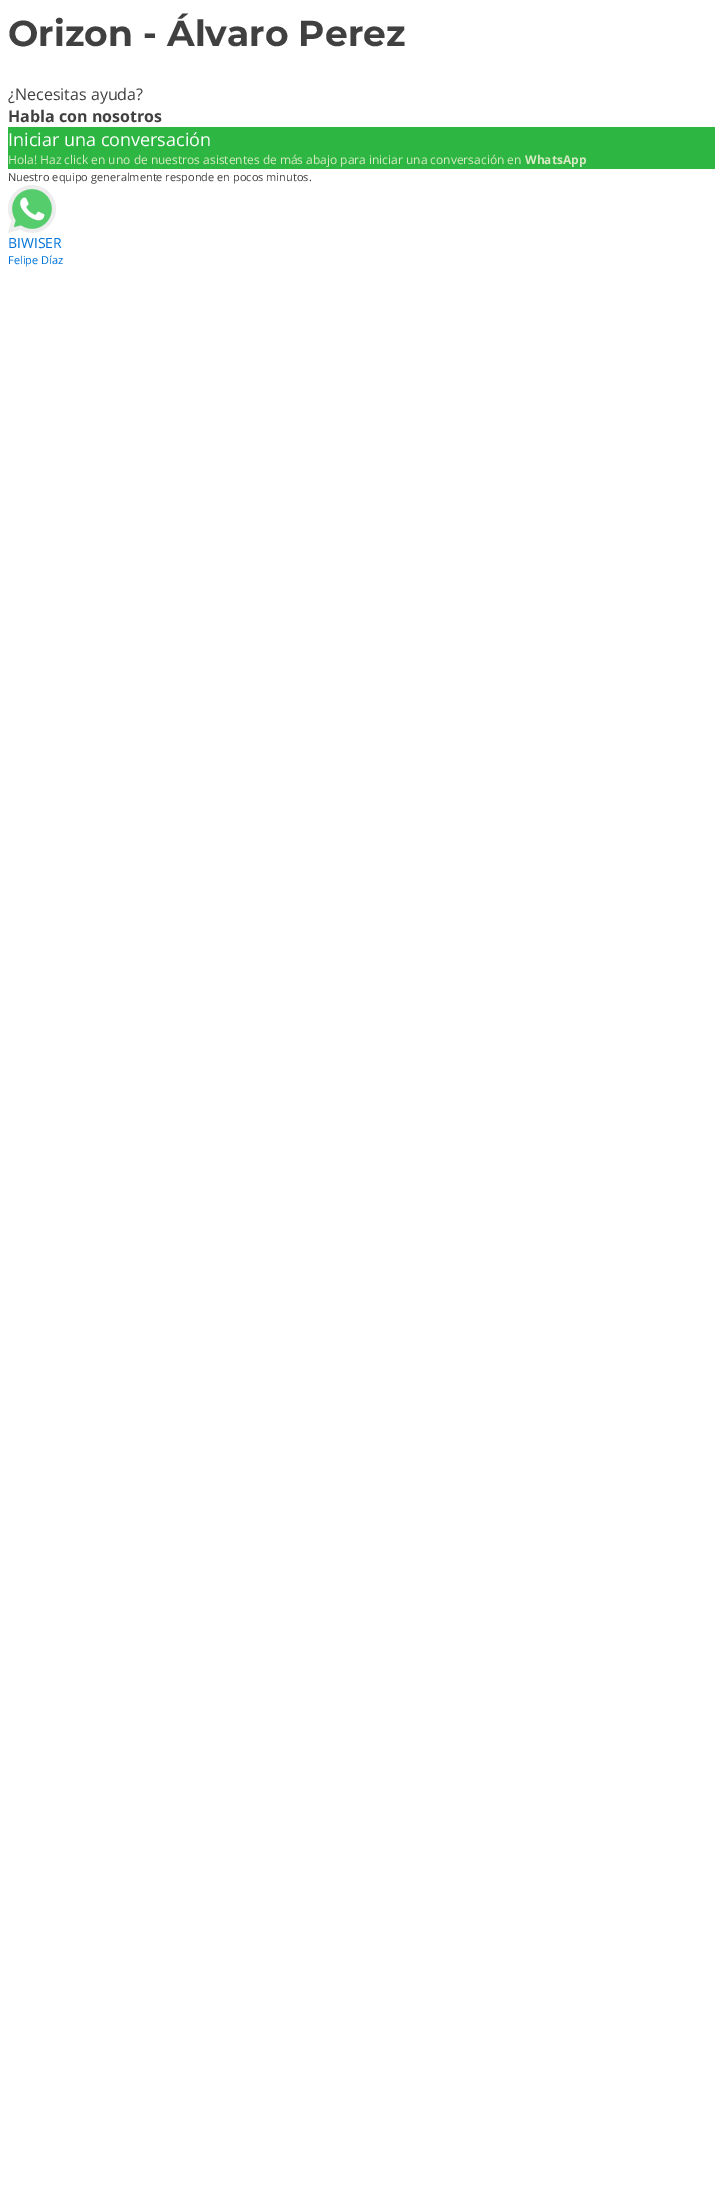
%!PS
<< /PageSize [723 2199] >> setpagedevice
/co { dup -16 bitshift 255 div exch dup -8 bitshift 255 and 255 div exch 255 and 255 div setrgbcolor } def
/fn { [ exch dup neg 0 0 3 -1 roll 0 0 ] selectfont } def
/tx { co fn moveto show } def
/bx { co rectfill } def
/im { 5 dict begin { /h /w /y /x /name } { exch def } forall
  gsave x y translate w h scale
  w h 8 [w 0 0 h 0 0] name (r) file false 3 colorimage grestore end } def
0 2199 translate 1 -1 scale
4 setmiterlimit
0 0 723 2199 16#FFFFFF bx
8 127 707 42 16#2DB742 bx
(media/1.raw) 8 185 48 48 im
(Orizon - Álvaro Perez) 8 46 /Montserrat-Bold 36 16#404040 tx
(¿Necesitas ayuda?) 8 100 /OpenSans-Regular 16 16#404040 tx
(Habla con nosotros) 8 122 /OpenSans-Bold 16 16#404040 tx
(Iniciar una conversación) 8 146 /OpenSans-Regular 18 16#FFFFFF tx
(Hola! Haz click en uno de nuestros asistentes de más abajo para iniciar una conversación en) 8 164 /OpenSans-Regular 12 16#D9EBC6 tx
(WhatsApp) 525 164 /OpenSans-Bold 12 16#D9EBC6 tx
(Nuestro equipo generalmente responde en pocos minutos.) 8 181 /OpenSans-Regular 11 16#404040 tx
(BIWISER) 8 248 /OpenSans-Regular 14 16#0074DB tx
(Felipe Díaz) 8 264 /OpenSans-Regular 11 16#0074DB tx
showpage
